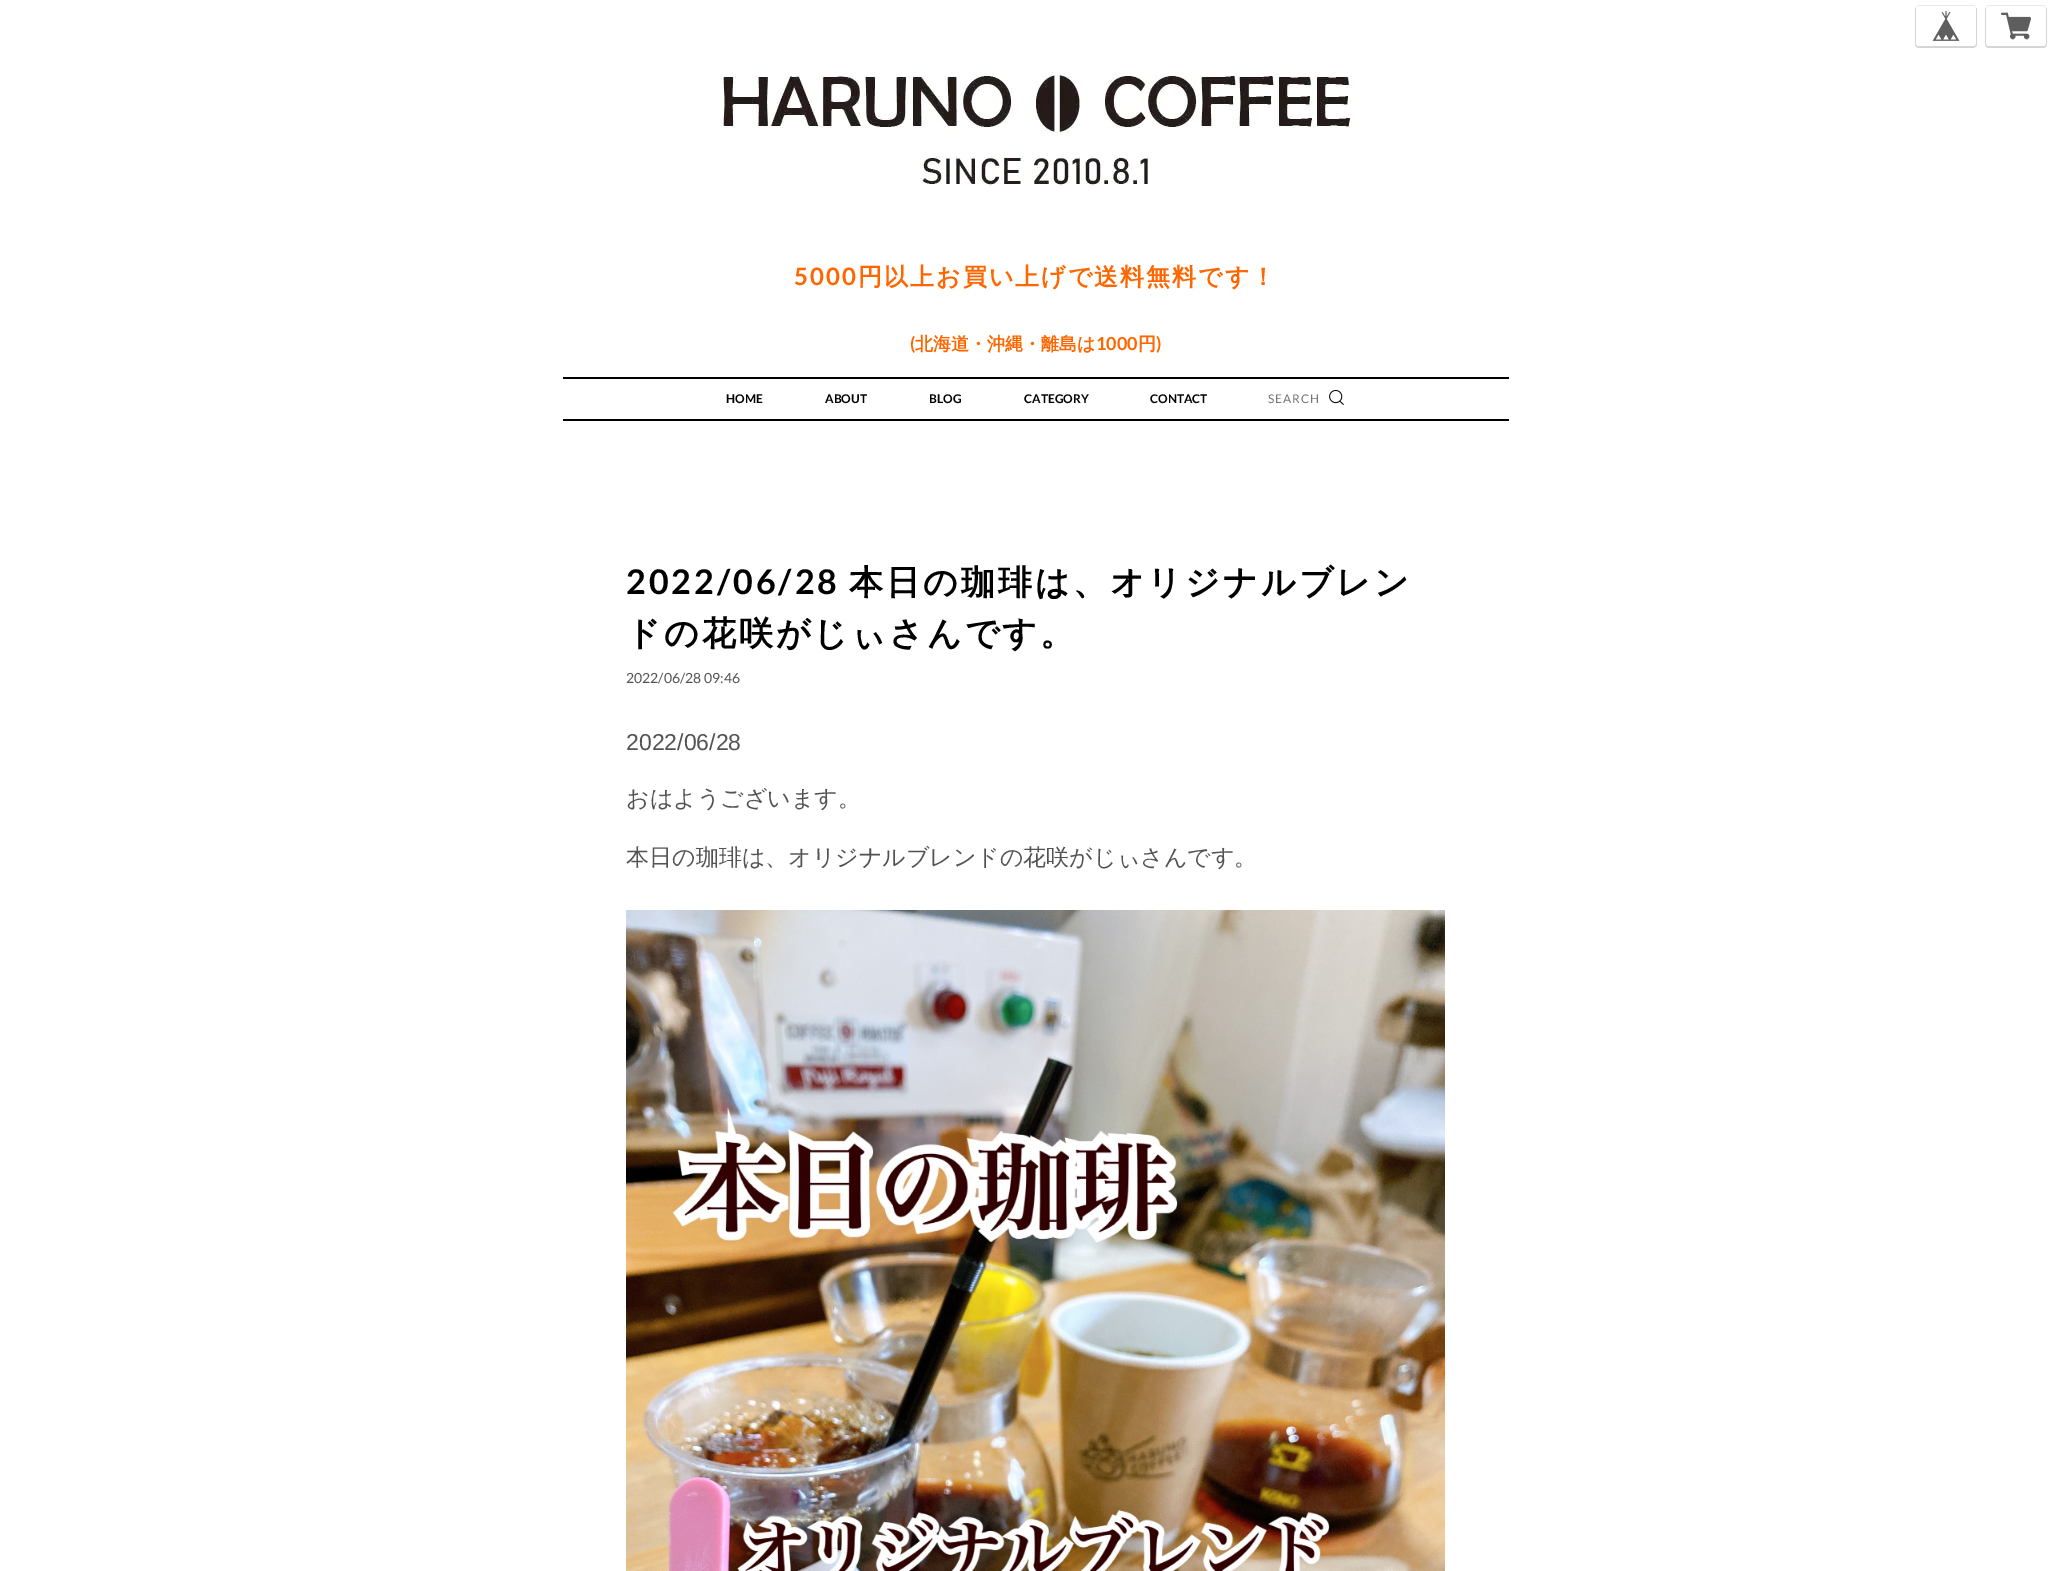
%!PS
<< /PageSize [2071 1571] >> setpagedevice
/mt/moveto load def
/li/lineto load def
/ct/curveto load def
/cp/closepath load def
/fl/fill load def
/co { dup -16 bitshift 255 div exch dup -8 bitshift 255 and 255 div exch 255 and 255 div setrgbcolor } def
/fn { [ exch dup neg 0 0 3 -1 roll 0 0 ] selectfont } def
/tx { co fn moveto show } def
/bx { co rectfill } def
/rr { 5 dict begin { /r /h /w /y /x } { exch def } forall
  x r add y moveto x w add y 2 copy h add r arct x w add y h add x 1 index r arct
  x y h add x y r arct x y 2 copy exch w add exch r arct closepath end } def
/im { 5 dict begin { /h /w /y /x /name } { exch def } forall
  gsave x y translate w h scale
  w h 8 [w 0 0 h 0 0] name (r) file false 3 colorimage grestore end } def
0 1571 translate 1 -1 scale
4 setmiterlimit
0 0 2071 1571 16#FFFFFF bx
16#EAEAEA co
1919 5 mt 1917 5 1916 7 1916 9 ct 1916 7 1917 6 1919 6 ct 1973 6 li 1975 6 1976 7 1976 9 ct 1976 7 1975 5 1973 5 ct cp fl
16#D5D5D5 co
1919 6 mt 1917 6 1915 8 1915 10 ct 1915 44 li 1915 46 1917 48 1919 48 ct 1973 48 li 1975 48 1977 46 1977 44 ct 1977 10 li 1977 8 1975 6 1973 6 ct 1975 6 1976 7 1976 9 ct 1976 43 li 1976 45 1975 46 1973 46 ct 1919 46 li 1917 46 1916 45 1916 43 ct 1916 9 li 1916 7 1917 6 1919 6 ct cp fl
16#FFFFFF co
1916 6 60 40 3 rr fl
(media/1.raw) 1932 11 28 30 im
16#EAEAEA co
1989 5 mt 1987 5 1986 7 1986 9 ct 1986 7 1987 6 1989 6 ct 2043 6 li 2045 6 2046 7 2046 9 ct 2046 7 2045 5 2043 5 ct cp fl
16#D5D5D5 co
1989 6 mt 1987 6 1985 8 1985 10 ct 1985 44 li 1985 46 1987 48 1989 48 ct 2043 48 li 2045 48 2047 46 2047 44 ct 2047 10 li 2047 8 2045 6 2043 6 ct 2045 6 2046 7 2046 9 ct 2046 43 li 2046 45 2045 46 2043 46 ct 1989 46 li 1987 46 1986 45 1986 43 ct 1986 9 li 1986 7 1987 6 1989 6 ct cp fl
16#FFFFFF co
1986 6 60 40 3 rr fl
(media/2.raw) 2001 12 30 28 im
(media/3.raw) 720 72 632 116 im
563 377 946 2 16#000000 bx
563 419 946 2 16#000000 bx
(media/4.raw) 1329 390 15 15 im
(media/5.raw) 626 910 819 661 im
/Lato-Bold 24 fn
16#FF6600 co
794 285 mt 2 0 (5000) ashow
/WenQuanYiZenHei-Bold 24 fn
858 285 mt 2 0 (円以上お買い上げで送料無料です！) ashow
(\() 910 350 /Lato-Bold 18 16#FF6600 tx
(北海道・沖縄・離島は) 915 350 /WenQuanYiZenHei-Bold 18 16#FF6600 tx
(1000) 1096 350 /Lato-Bold 18 16#FF6600 tx
(円) 1138 350 /WenQuanYiZenHei-Bold 18 16#FF6600 tx
(\)) 1156 350 /Lato-Bold 18 16#FF6600 tx
(HOME) 726 403 /Lato-Bold 12 16#000000 tx
(ABOUT) 825 403 /Lato-Bold 12 16#000000 tx
(BLOG) 929 403 /Lato-Bold 12 16#000000 tx
(CATEGORY) 1024 403 /Lato-Bold 12 16#000000 tx
(CONTACT) 1150 403 /Lato-Bold 12 16#000000 tx
/Lato-Regular 12 fn
16#757575 co
1268 403 mt 1 0 (SEARCH) ashow
/Lato-Bold 34 fn
16#000000 co
626 594 mt 3 0 (2022/06/28) ashow
/WenQuanYiZenHei-Bold 34 fn
849 594 mt 3 0 (本日の珈琲は、オリジナルブレン) ashow
626 645 mt 3 0 (ドの花咲がじぃさんです。) ashow
(2022/06/28 09:46) 626 683 /Lato-Regular 14 16#535353 tx
(2022/06/28) 626 750 /LiberationSans-Regular 23 16#535353 tx
(おはようございます。) 626 806 /WenQuanYiZenHei-Medium 23 16#535353 tx
(本日の珈琲は、オリジナルブレンドの花咲がじぃさんです。) 626 865 /WenQuanYiZenHei-Medium 23 16#535353 tx
showpage
